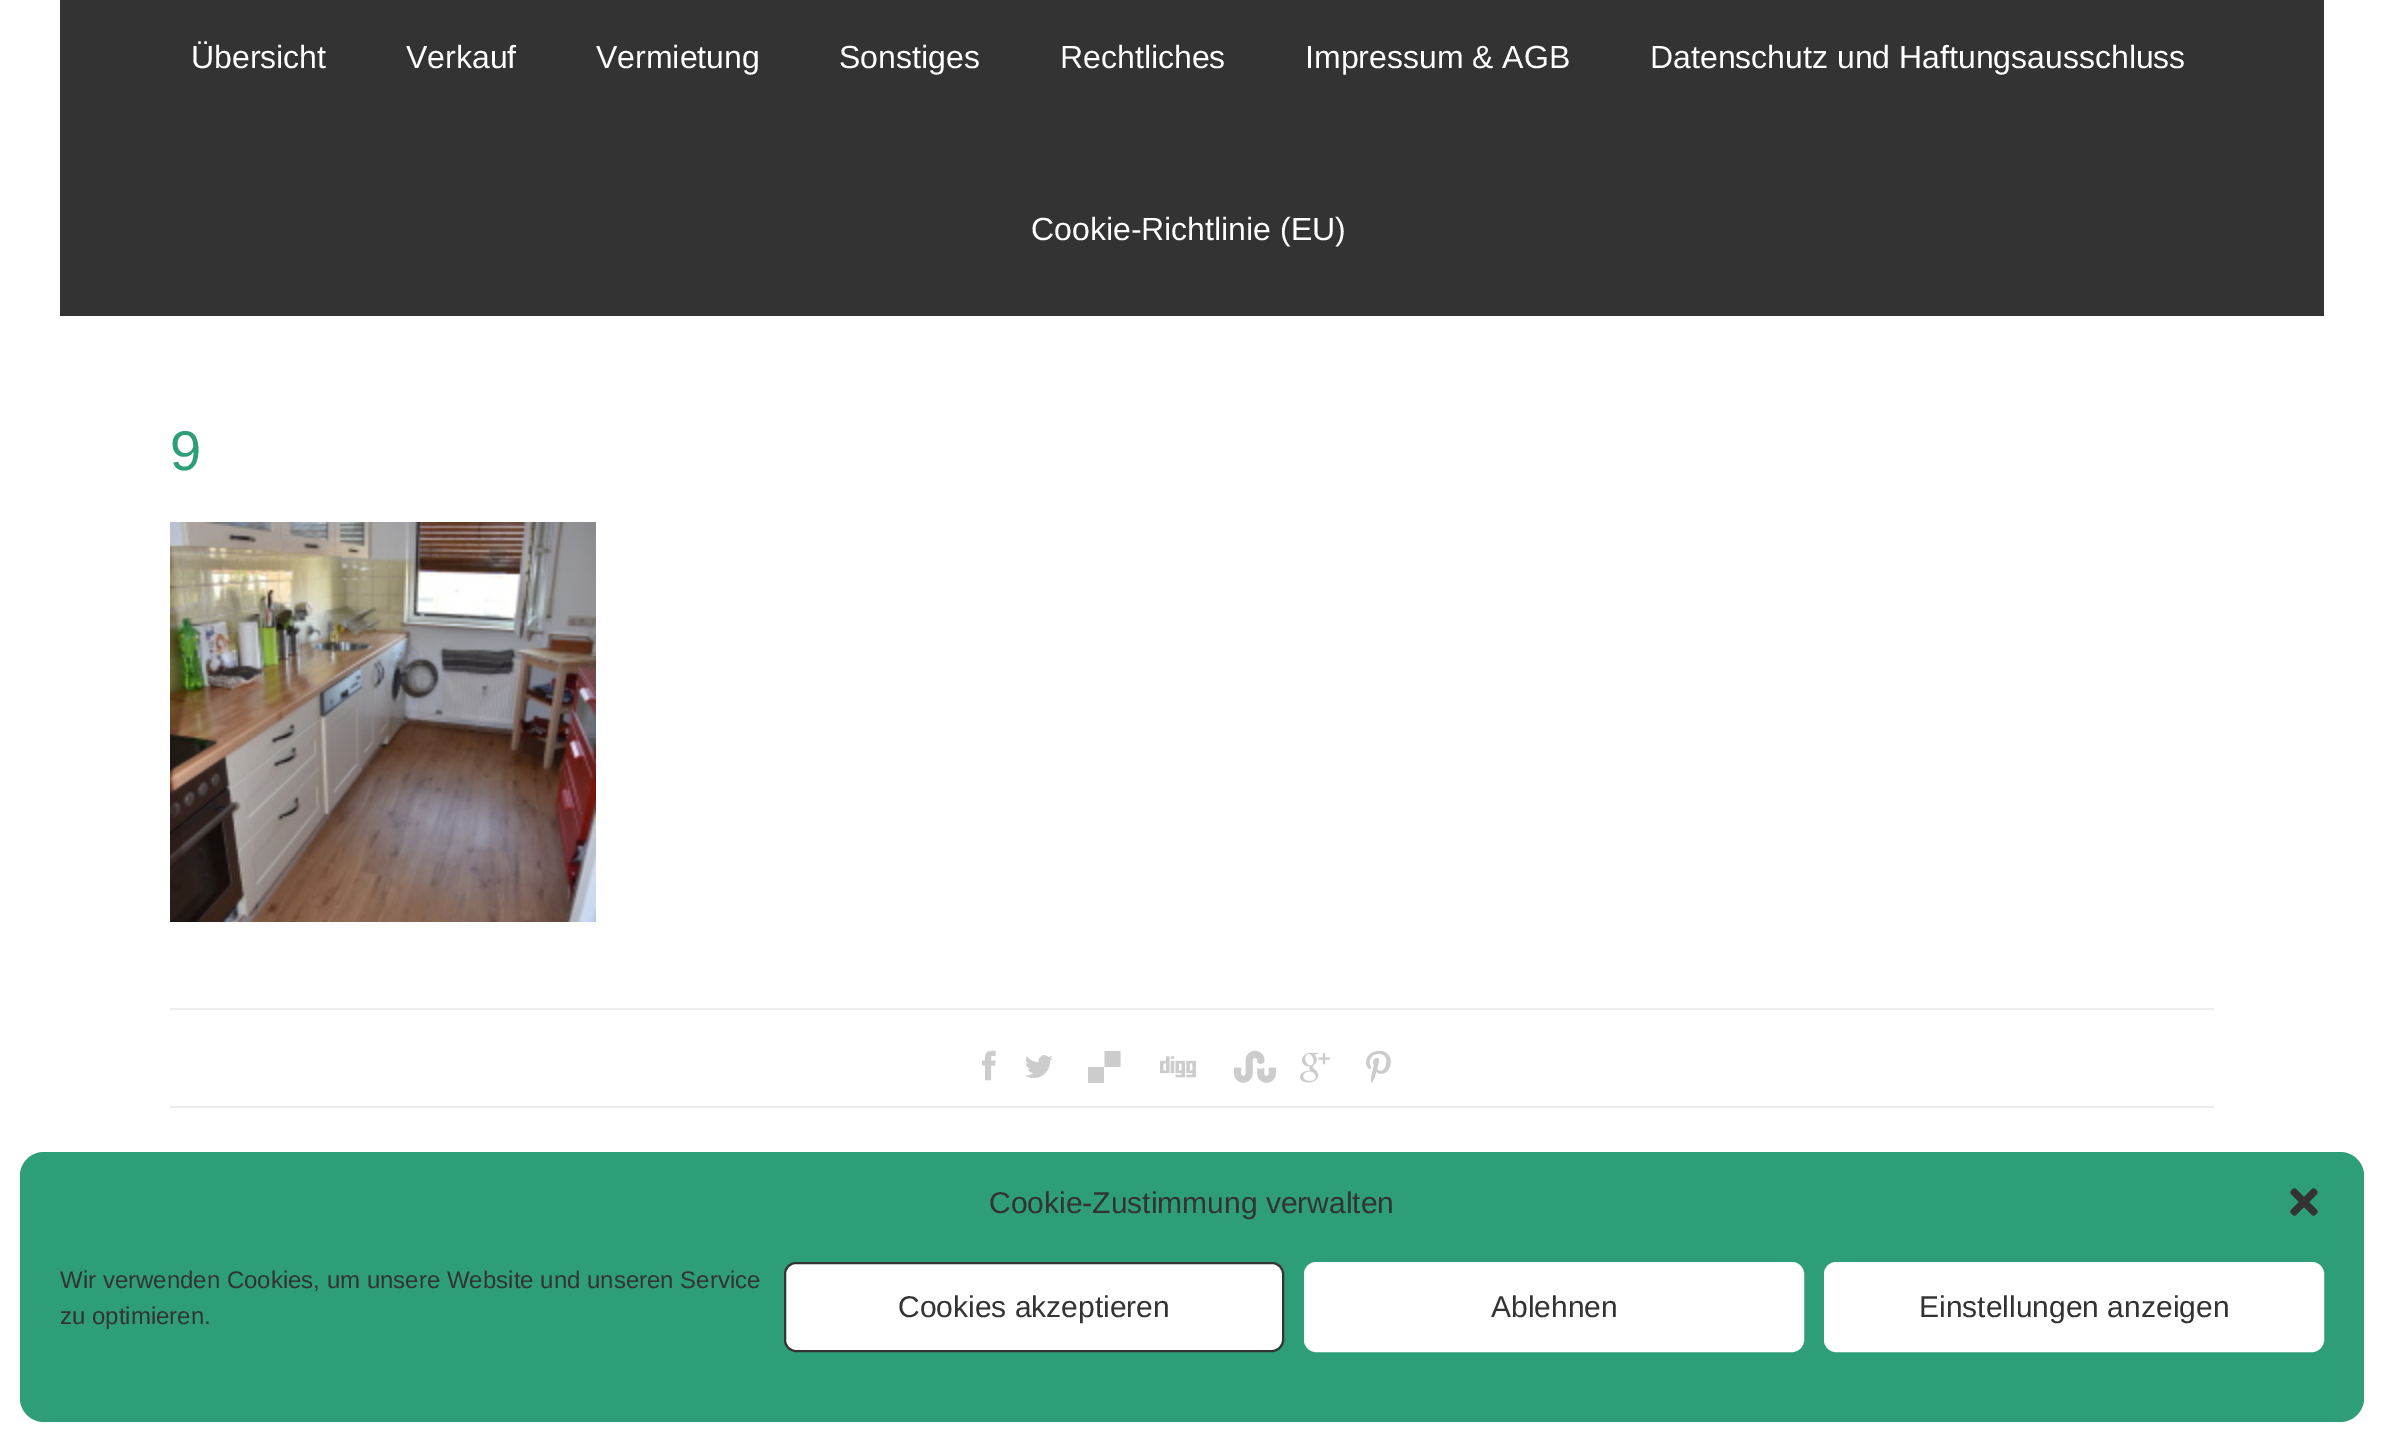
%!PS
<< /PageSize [2383 1441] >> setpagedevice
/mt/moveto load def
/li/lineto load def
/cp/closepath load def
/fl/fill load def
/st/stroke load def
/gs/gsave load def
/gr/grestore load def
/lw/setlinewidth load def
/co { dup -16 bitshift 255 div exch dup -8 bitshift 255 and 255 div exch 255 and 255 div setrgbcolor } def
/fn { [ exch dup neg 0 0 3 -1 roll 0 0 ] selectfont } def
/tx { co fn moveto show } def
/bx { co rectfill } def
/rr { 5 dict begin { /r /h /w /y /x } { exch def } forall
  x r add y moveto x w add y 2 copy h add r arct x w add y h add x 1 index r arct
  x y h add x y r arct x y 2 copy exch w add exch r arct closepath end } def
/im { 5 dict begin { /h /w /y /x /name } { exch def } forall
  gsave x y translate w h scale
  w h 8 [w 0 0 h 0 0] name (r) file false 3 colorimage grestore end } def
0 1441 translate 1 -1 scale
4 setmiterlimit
0 0 2383 1441 16#FFFFFF bx
60 0 2264 316 16#333333 bx
(media/1.raw) 170 522 426 400 im
170 1008 2044 2 16#EDEDED bx
170 1106 2044 2 16#EDEDED bx
(media/2.raw) 982 1050 14 31 im
(media/3.raw) 1025 1055 28 23 im
16#CCCCCC co
1088 1083 mt 1088 1067 li 1104 1067 li 1104 1083 li cp 1104.5 1067 mt 1104.5 1051 li 1120.5 1051 li 1120.5 1067 li cp fl
(media/4.raw) 1160 1056 36 22 im
(media/5.raw) 1234 1050 42 33 im
(media/6.raw) 1300 1052 30 31 im
(media/7.raw) 1366 1050 25 33 im
16#2D9E78 co
20 1152 2344 270 24 rr fl
(media/8.raw) 2290 1188 28 28 im
16#FFFFFF co
785 1263 498 88 11 rr gs fl gr
16#333333 co
2 lw
st
16#FFFFFF co
1305 1263 498 88 11 rr gs fl gr
st
1825 1263 498 88 11 rr gs fl gr
st
(Übersicht) 191 68 /LiberationSans-Regular 32 16#FFFFFF tx
(Verkauf) 406 68 /LiberationSans-Regular 32 16#FFFFFF tx
(Vermietung) 596 68 /LiberationSans-Regular 32 16#FFFFFF tx
(Sonstiges) 839 68 /LiberationSans-Regular 32 16#FFFFFF tx
(Rechtliches) 1060 68 /LiberationSans-Regular 32 16#FFFFFF tx
(Impressum & AGB) 1305 68 /LiberationSans-Regular 32 16#FFFFFF tx
(Datenschutz und Haftungsausschluss) 1650 68 /LiberationSans-Regular 32 16#FFFFFF tx
(Cookie-Richtlinie \(EU\)) 1031 240 /LiberationSans-Regular 32 16#FFFFFF tx
(9) 170 470 /LiberationSans-Regular 56 16#2D9E78 tx
(Cookie-Zustimmung verwalten) 989 1213 /LiberationSans-Regular 30 16#333333 tx
(Wir verwenden Cookies, um unsere Website und unseren Service) 60 1288 /LiberationSans-Regular 24 16#333333 tx
(zu optimieren.) 60 1324 /LiberationSans-Regular 24 16#333333 tx
(Cookies akzeptieren) 898 1317 /LiberationSans-Regular 30 16#333333 tx
(Ablehnen) 1491 1317 /LiberationSans-Regular 30 16#333333 tx
(Einstellungen anzeigen) 1919 1317 /LiberationSans-Regular 30 16#333333 tx
showpage
